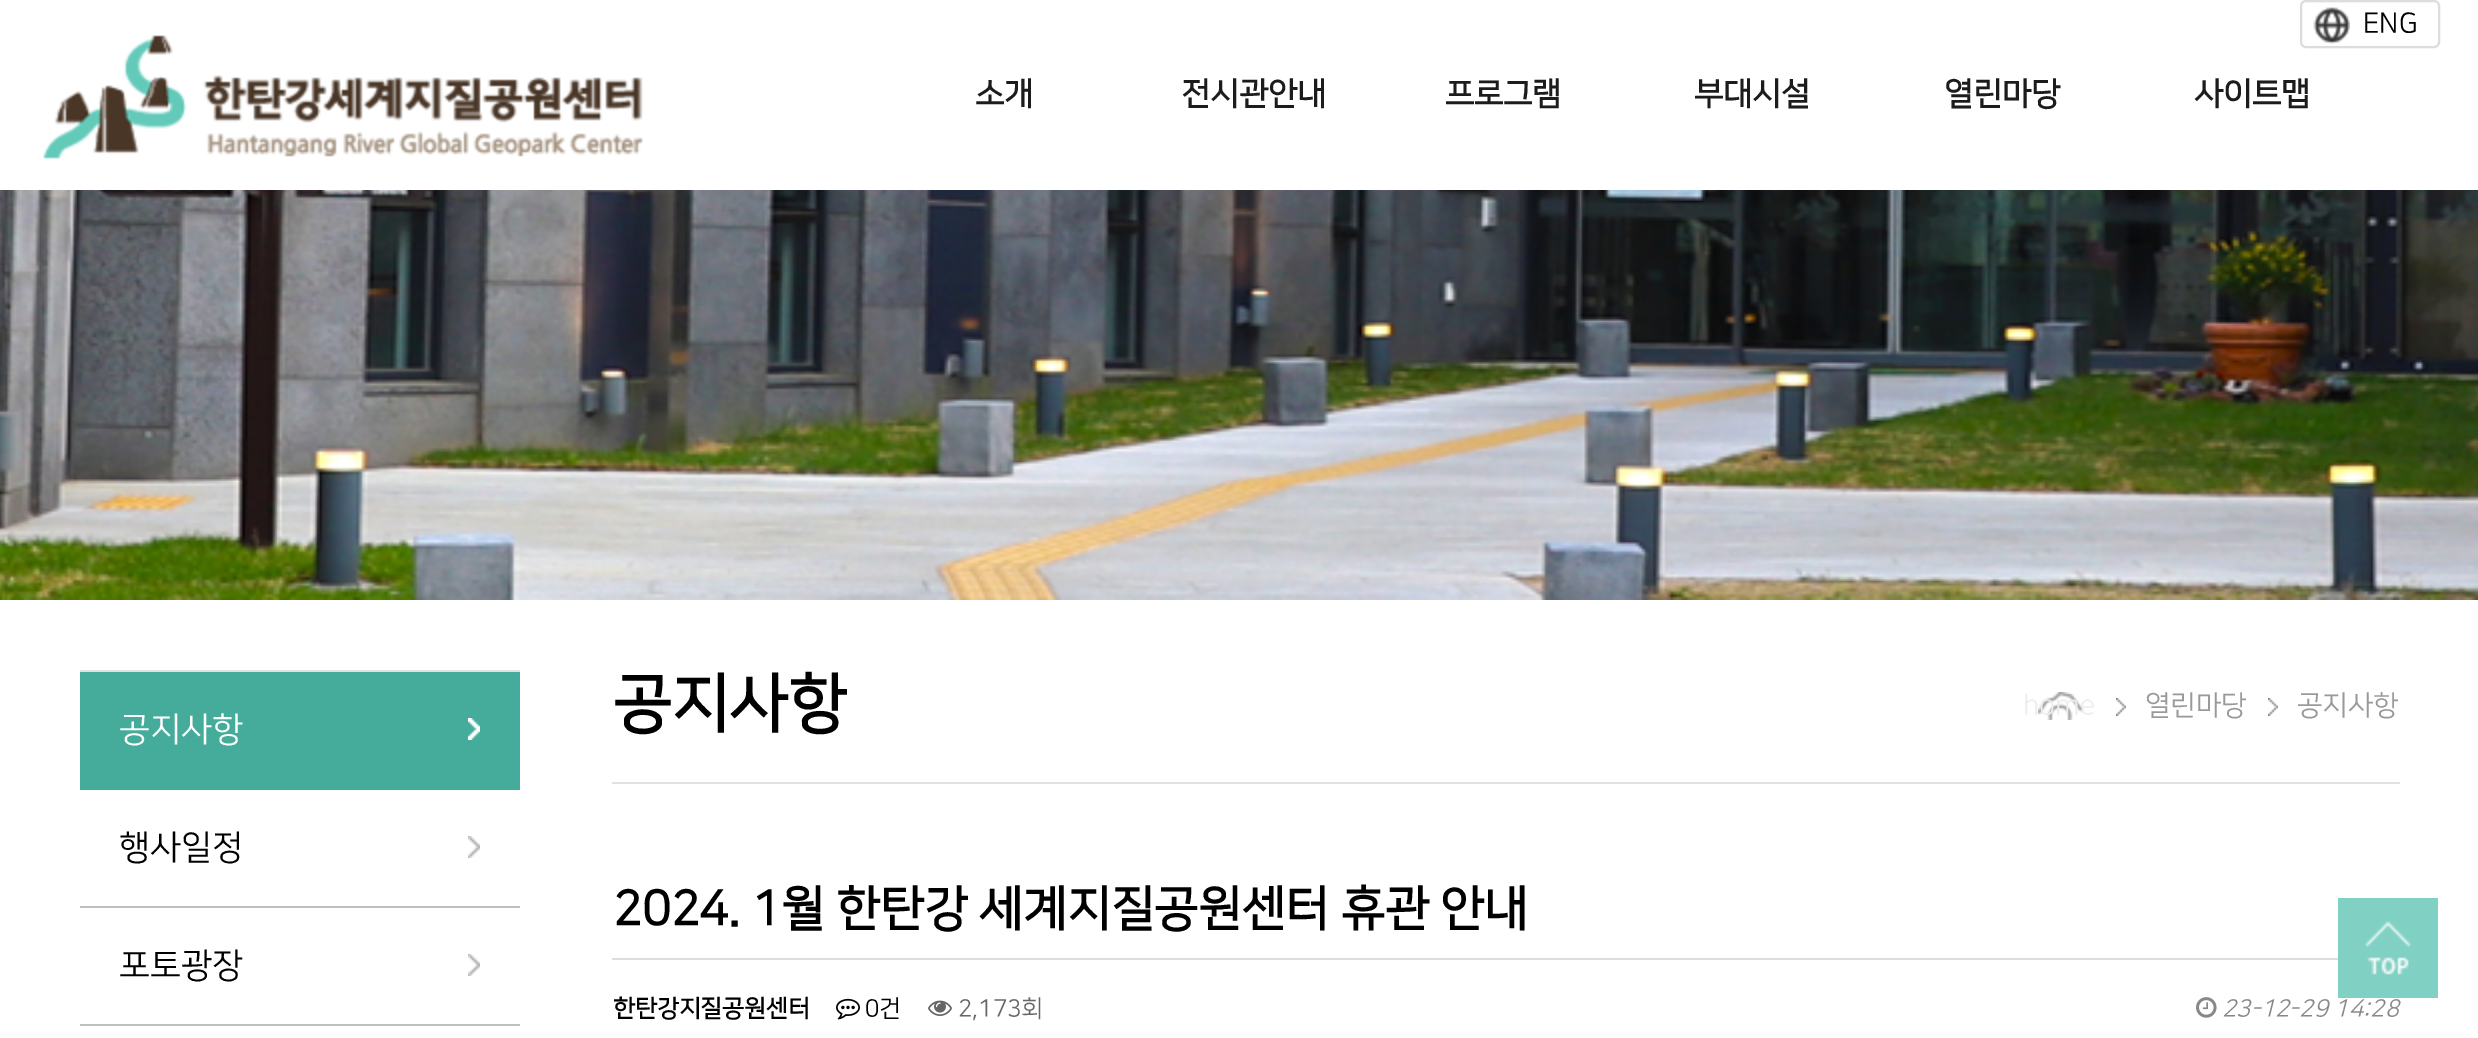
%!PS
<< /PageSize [2478 1038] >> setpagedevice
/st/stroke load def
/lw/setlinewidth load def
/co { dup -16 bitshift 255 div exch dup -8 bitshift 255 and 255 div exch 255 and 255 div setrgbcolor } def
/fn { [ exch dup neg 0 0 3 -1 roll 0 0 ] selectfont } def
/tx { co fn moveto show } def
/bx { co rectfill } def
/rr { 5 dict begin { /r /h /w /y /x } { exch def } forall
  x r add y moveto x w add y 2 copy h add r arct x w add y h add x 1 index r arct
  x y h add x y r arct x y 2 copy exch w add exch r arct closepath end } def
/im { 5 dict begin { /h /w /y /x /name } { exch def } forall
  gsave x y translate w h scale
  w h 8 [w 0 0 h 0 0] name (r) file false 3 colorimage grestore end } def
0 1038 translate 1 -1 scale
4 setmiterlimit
0 0 2478 1038 16#FFFFFF bx
(media/1.raw) 0 190 2478 410 im
(media/2.raw) 2313 7 37 37 im
16#DDDDDD co
2 lw
2301 1 138 46 5 rr st
(media/3.raw) 43 35 600 124 im
80 672 440 118 16#45AC9B bx
80 670 440 2 16#E1E1E1 bx
(media/4.raw) 468 718 12 22 im
80 906 440 2 16#C0BFBF bx
(media/5.raw) 468 836 12 22 im
80 1024 440 2 16#C0BFBF bx
(media/5.raw) 468 954 12 22 im
612 782 1788 2 16#E1E1E1 bx
(media/6.raw) 2038 692 44 28 im
(media/7.raw) 2116 698 10 18 im
(media/7.raw) 2268 698 10 18 im
612 958 1788 2 16#DDDDDD bx
(media/8.raw) 836 998 24 22 im
(media/9.raw) 928 1000 24 16 im
(media/10.raw) 2196 997 21 21 im
(media/11.raw) 2338 898 100 100 im
(ENG) 2363 32 /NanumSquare-Regular 28 16#000000 tx
(소개) 975 104 /NanumSquare-Bold 32 16#1C1C1C tx
(전시관안내) 1181 104 /NanumSquare-Bold 32 16#1C1C1C tx
(프로그램) 1445 104 /NanumSquare-Bold 32 16#1C1C1C tx
(부대시설) 1694 104 /NanumSquare-Bold 32 16#1C1C1C tx
(열린마당) 1944 104 /NanumSquare-Bold 32 16#1C1C1C tx
(사이트맵) 2194 104 /NanumSquare-Bold 32 16#1C1C1C tx
(공지사항) 119 740 /NanumSquare-Regular 34 16#FFFFFF tx
(행사일정) 119 858 /NanumSquare-Regular 34 16#000000 tx
(포토광장) 119 976 /NanumSquare-Regular 34 16#000000 tx
(공지사항) 613 724 /NanumSquare-Bold 64 16#000000 tx
(home) 2023 714 /NanumSquare-Regular 28 16#EDEDED tx
(열린마당) 2145 714 /NanumSquare-Regular 28 16#999999 tx
(공지사항) 2297 714 /NanumSquare-Regular 28 16#999999 tx
(2024. 1월 한탄강 세계지질공원센터 휴관 안내) 613 924 /NanumSquare-Bold 48 16#000000 tx
(한탄강지질공원센터) 613 1016 /NanumSquare-Bold 24 16#000000 tx
(0건) 865 1016 /NanumSquare-Regular 24 16#000000 tx
(2,173회) 958 1016 /NanumSquare-Regular 24 16#666666 tx
(23-12-29 14:28) 2222 1016 /NanumSquare-Italic 24 16#888888 tx
showpage
